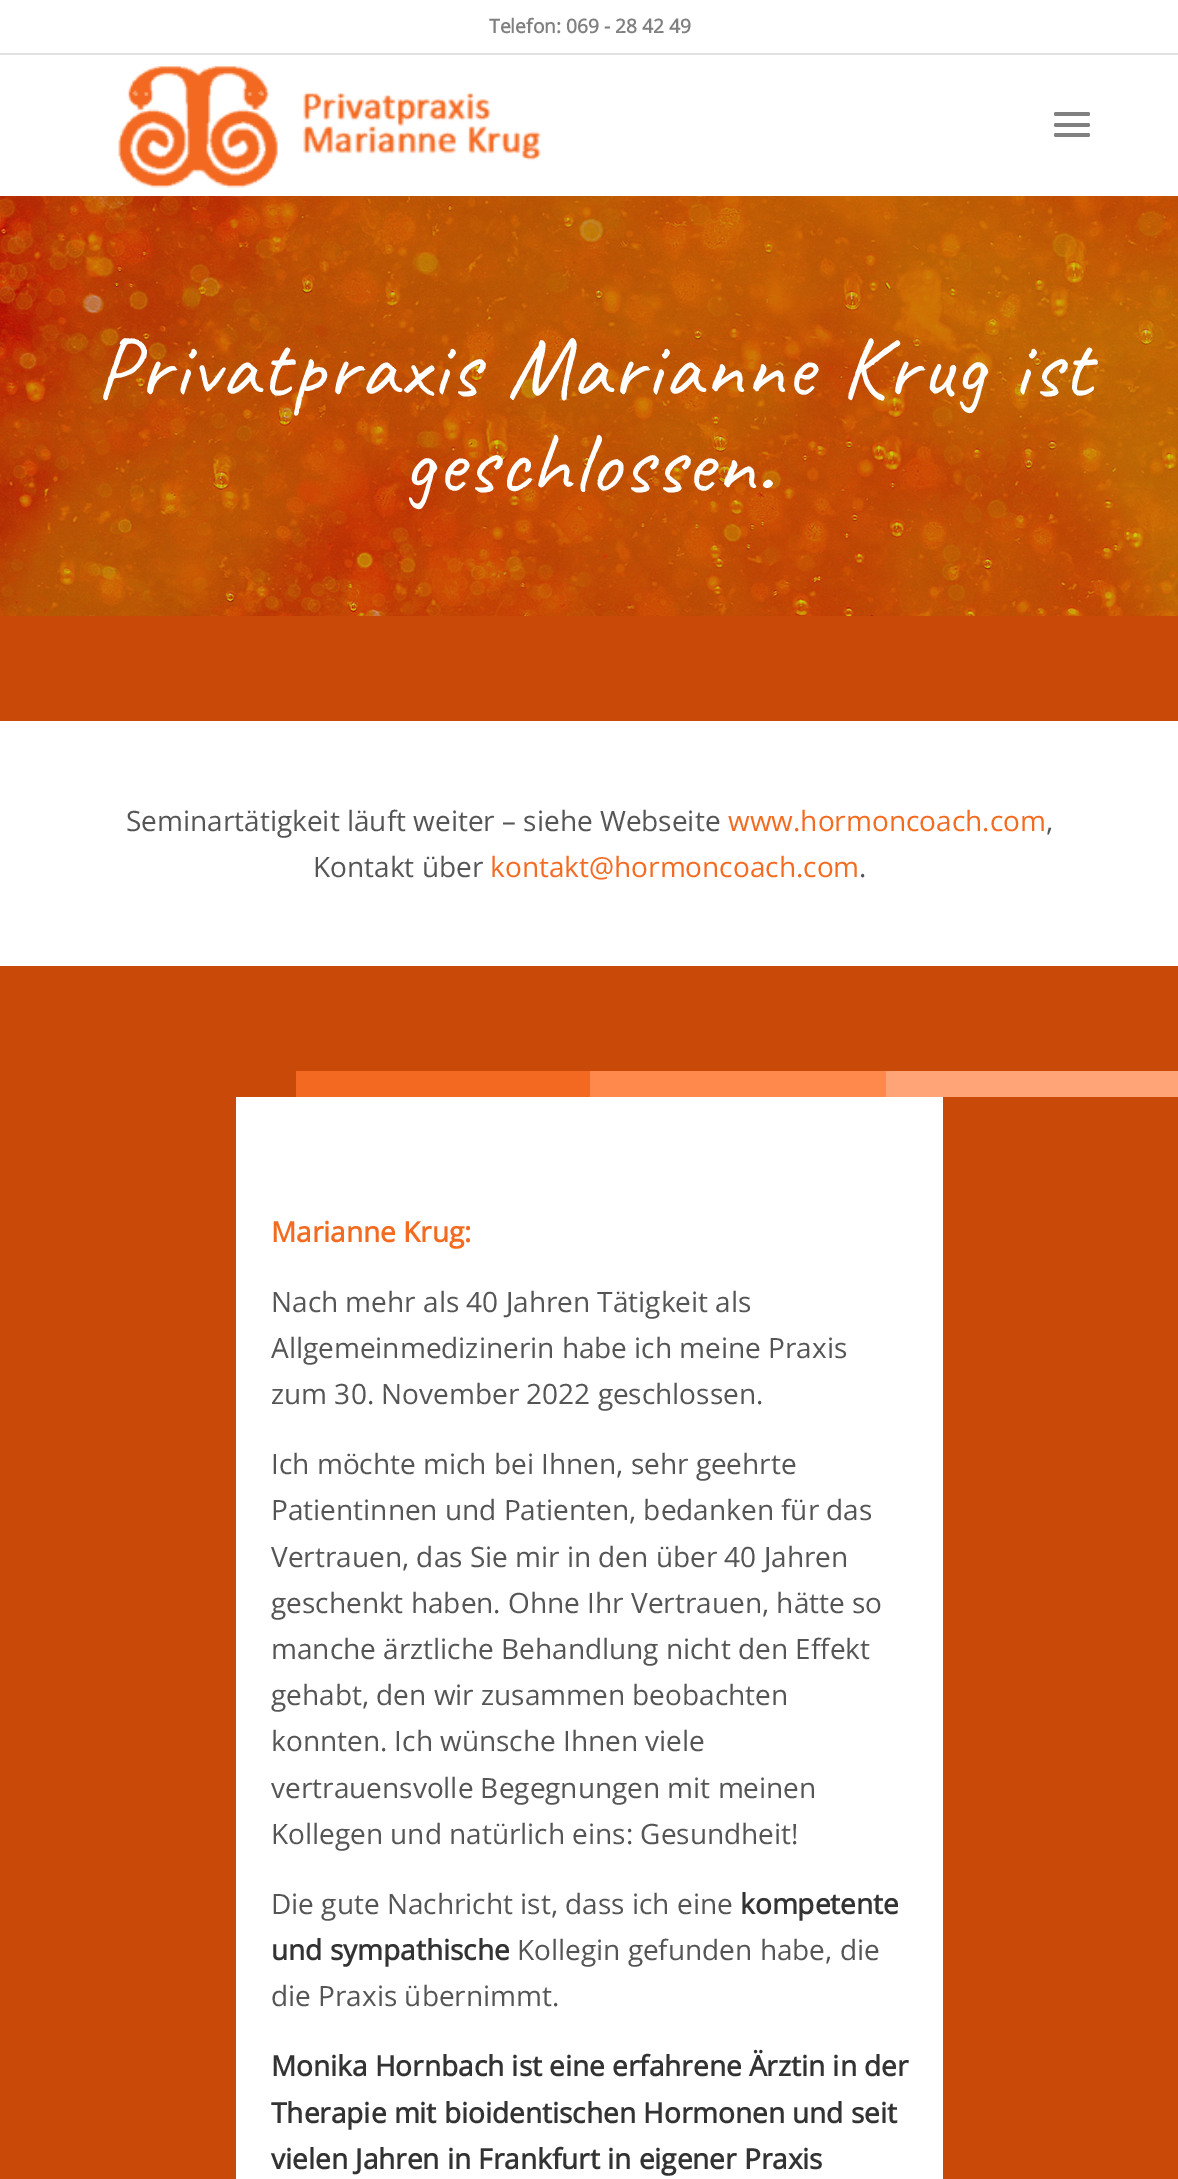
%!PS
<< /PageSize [1178 2179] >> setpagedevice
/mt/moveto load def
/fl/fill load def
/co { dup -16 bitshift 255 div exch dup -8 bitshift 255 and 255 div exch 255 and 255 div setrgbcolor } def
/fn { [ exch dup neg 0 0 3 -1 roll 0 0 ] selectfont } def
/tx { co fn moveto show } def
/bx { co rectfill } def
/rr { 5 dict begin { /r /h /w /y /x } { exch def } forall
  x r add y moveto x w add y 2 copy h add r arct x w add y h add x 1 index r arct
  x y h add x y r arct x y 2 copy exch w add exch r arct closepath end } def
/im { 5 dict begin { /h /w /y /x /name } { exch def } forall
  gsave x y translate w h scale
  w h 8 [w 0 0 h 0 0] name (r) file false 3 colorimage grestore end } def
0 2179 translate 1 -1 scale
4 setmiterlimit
0 0 1178 2179 16#FFFFFF bx
0 53 1178 2 16#E1E1E1 bx
(media/1.raw) 118 66 423 122 im
16#808080 co
1054 123 36 4 2 rr fl
1054 112 36 4 2 rr fl
1054 133 36 4 2 rr fl
(media/2.raw) 0 196 1178 420 im
0 616 1178 105 16#C84908 bx
0 966 1178 105 16#C84908 bx
0 1071 296 26 16#C84908 bx
296 1071 294 26 16#F36921 bx
590 1071 296 26 16#FF894D bx
886 1071 292 26 16#FFA476 bx
0 1097 236 1082 16#C84908 bx
943 1097 235 1082 16#C84908 bx
(Telefon: 069 - 28 42 49) 489 33 /OpenSans-Bold 19.25 16#808080 tx
/Caveat-Regular 87.5 fn
16#FFFFFF co
96 396 mt 3 0 32 1.75 0 (Privatpraxis Marianne Krug ist) awidthshow
403 492 mt 1.75 0 (geschlossen.) ashow
(Seminartätigkeit läuft weiter – siehe Webseite) 126 831 /OpenSans-Regular 28 16#555555 tx
(www.hormoncoach.com) 728 831 /OpenSans-Regular 28 16#F36B21 tx
(,) 1046 831 /OpenSans-Regular 28 16#555555 tx
(Kontakt über) 313 877 /OpenSans-Regular 28 16#555555 tx
(kontakt@hormoncoach.com) 490 877 /OpenSans-Regular 28 16#F36B21 tx
(.) 859 877 /OpenSans-Regular 28 16#555555 tx
(Marianne Krug:) 271 1242 /OpenSans-Bold 28 16#F36B21 tx
(Nach mehr als 40 Jahren Tätigkeit als) 271 1312 /OpenSans-Regular 28 16#555555 tx
(Allgemeinmedizinerin habe ich meine Praxis) 271 1358 /OpenSans-Regular 28 16#555555 tx
(zum 30. November 2022 geschlossen.) 271 1404 /OpenSans-Regular 28 16#555555 tx
(Ich möchte mich bei Ihnen, sehr geehrte) 271 1474 /OpenSans-Regular 28 16#555555 tx
(Patientinnen und Patienten, bedanken für das) 271 1520 /OpenSans-Regular 28 16#555555 tx
(Vertrauen, das Sie mir in den über 40 Jahren) 271 1567 /OpenSans-Regular 28 16#555555 tx
(geschenkt haben. Ohne Ihr Vertrauen, hätte so) 271 1613 /OpenSans-Regular 28 16#555555 tx
(manche ärztliche Behandlung nicht den Effekt) 271 1659 /OpenSans-Regular 28 16#555555 tx
(gehabt, den wir zusammen beobachten) 271 1705 /OpenSans-Regular 28 16#555555 tx
(konnten. Ich wünsche Ihnen viele) 271 1751 /OpenSans-Regular 28 16#555555 tx
(vertrauensvolle Begegnungen mit meinen) 271 1798 /OpenSans-Regular 28 16#555555 tx
(Kollegen und natürlich eins: Gesundheit!) 271 1844 /OpenSans-Regular 28 16#555555 tx
(Die gute Nachricht ist, dass ich eine) 271 1914 /OpenSans-Regular 28 16#555555 tx
(kompetente) 740 1914 /OpenSans-Bold 28 16#333333 tx
(und sympathische) 271 1960 /OpenSans-Bold 28 16#333333 tx
(Kollegin gefunden habe, die) 517 1960 /OpenSans-Regular 28 16#555555 tx
(die Praxis übernimmt.) 271 2006 /OpenSans-Regular 28 16#555555 tx
(Monika Hornbach ist eine erfahrene Ärztin in der) 271 2076 /OpenSans-Bold 28 16#333333 tx
(Therapie mit bioidentischen Hormonen und seit) 271 2123 /OpenSans-Bold 28 16#333333 tx
(vielen Jahren in Frankfurt in eigener Praxis) 271 2169 /OpenSans-Bold 28 16#333333 tx
showpage
